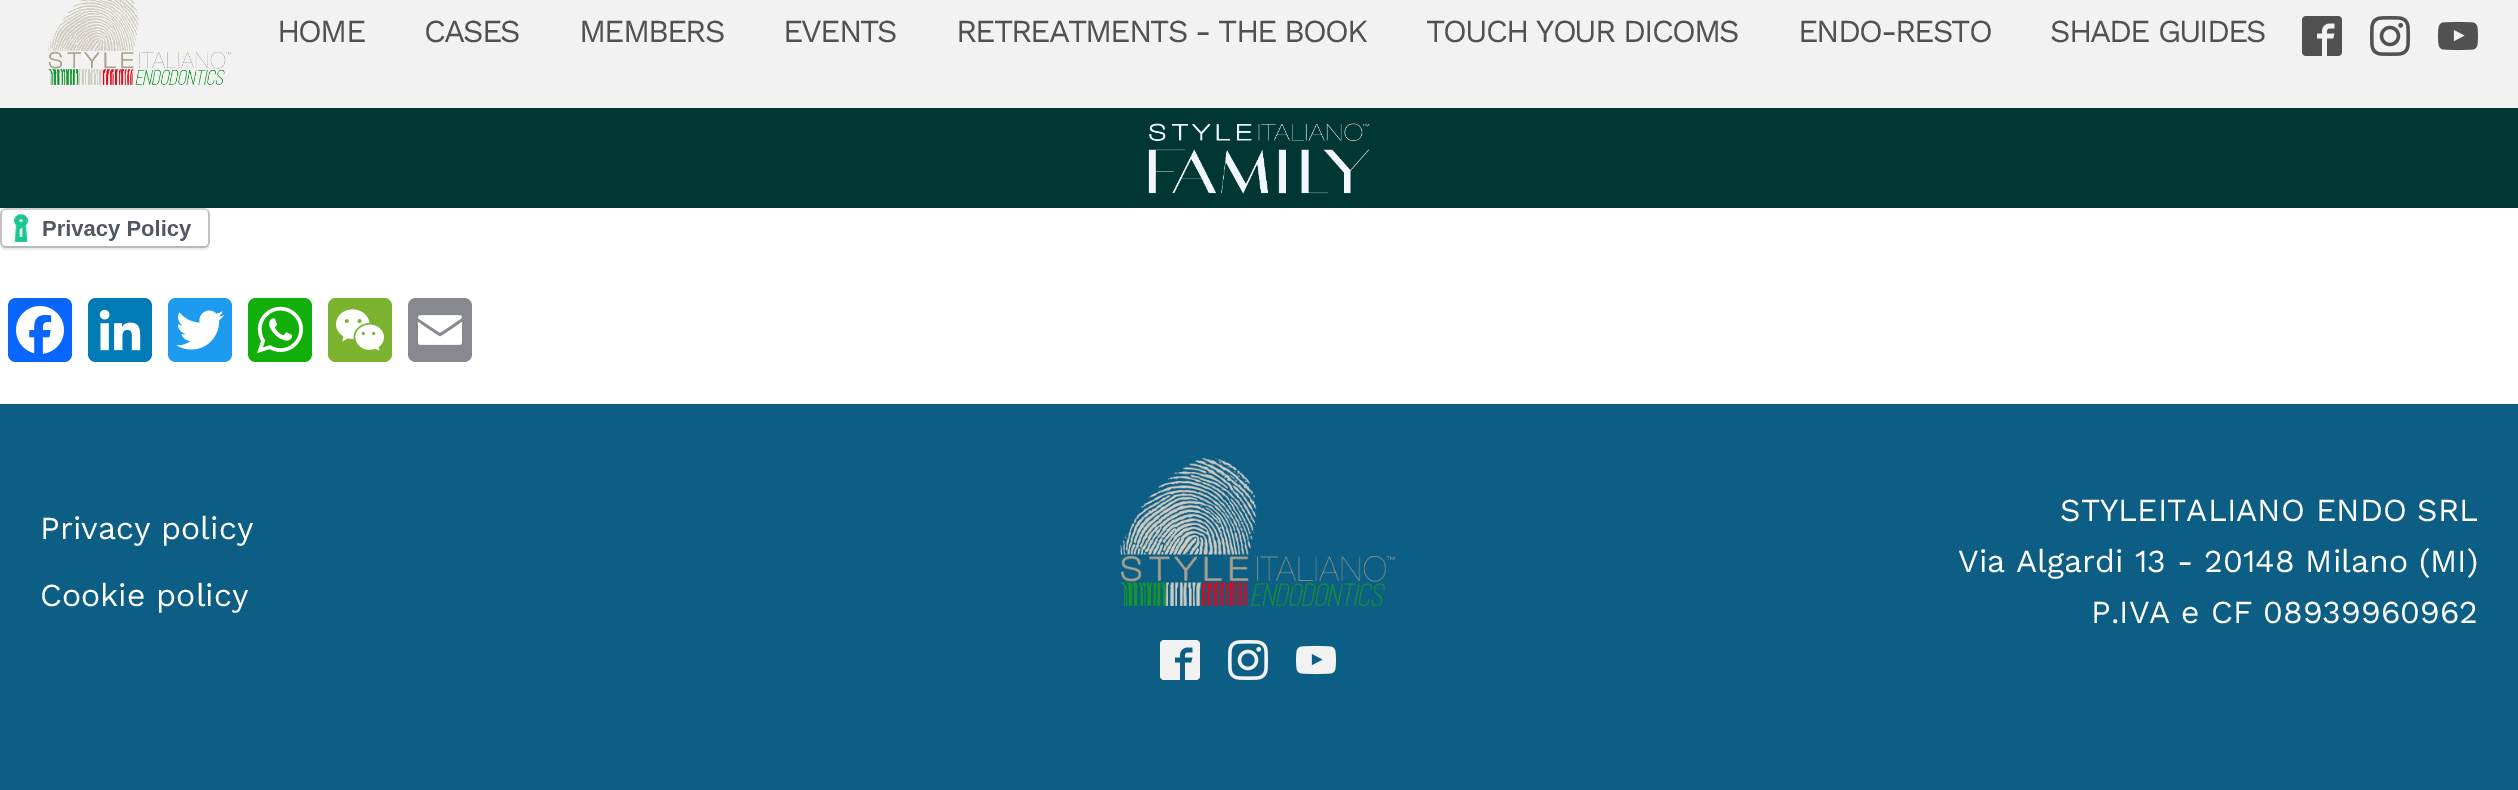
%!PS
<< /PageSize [2518 790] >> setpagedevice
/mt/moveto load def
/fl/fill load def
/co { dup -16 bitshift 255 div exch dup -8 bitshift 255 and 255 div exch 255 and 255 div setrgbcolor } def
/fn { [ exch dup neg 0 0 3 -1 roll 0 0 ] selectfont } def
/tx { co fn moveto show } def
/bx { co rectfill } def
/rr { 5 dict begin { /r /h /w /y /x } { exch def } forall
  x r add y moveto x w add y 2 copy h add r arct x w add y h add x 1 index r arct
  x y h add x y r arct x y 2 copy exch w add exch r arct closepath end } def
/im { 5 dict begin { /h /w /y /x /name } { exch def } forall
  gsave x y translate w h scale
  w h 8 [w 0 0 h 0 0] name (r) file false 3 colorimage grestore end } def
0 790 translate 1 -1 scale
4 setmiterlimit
0 0 2518 790 16#FFFFFF bx
0 0 2518 108 16#F2F2F2 bx
(media/1.raw) 48 0 184 85 im
(media/2.raw) 2302 16 40 40 im
(media/3.raw) 2370 16 40 40 im
(media/4.raw) 2438 21 40 30 im
(media/5.raw) 0 108 2518 100 im
(media/6.raw) 0 208 210 42 im
16#0866FF co
8 298 64 64 8 rr fl
(media/7.raw) 16 306 48 48 im
16#007BB5 co
88 298 64 64 8 rr fl
(media/8.raw) 99 309 42 42 im
16#1D9BF0 co
168 298 64 64 8 rr fl
(media/9.raw) 176 310 48 40 im
16#12AF0A co
248 298 64 64 8 rr fl
(media/10.raw) 257 306 46 48 im
16#7BB32E co
328 298 64 64 8 rr fl
(media/11.raw) 336 309 48 42 im
16#888990 co
408 298 64 64 8 rr fl
(media/12.raw) 418 315 44 30 im
0 404 2518 386 16#0D5E84 bx
(media/13.raw) 1120 458 275 148 im
(media/14.raw) 1160 640 40 40 im
(media/15.raw) 1228 640 40 40 im
(media/16.raw) 1296 645 40 30 im
/WorkSans-Regular 32 fn
16#515151 co
277 42 mt -2 0 (HOME) ashow
424 42 mt -2 0 (CASES) ashow
579 42 mt -2 0 (MEMBERS) ashow
783 42 mt -2 0 (EVENTS) ashow
956 42 mt -2 0 (RETREATMENTS - THE BOOK) ashow
1426 42 mt -2 0 (TOUCH YOUR DICOMS) ashow
1798 42 mt -2 0 (ENDO-RESTO) ashow
2050 42 mt -2 0 (SHADE GUIDES) ashow
(Privacy policy) 40 539 /WorkSans-Regular 32 16#FFFFFF tx
(Cookie policy) 40 606 /WorkSans-Regular 32 16#FFFFFF tx
(STYLEITALIANO ENDO SRL) 2060 521 /WorkSans-Regular 32 16#FFFFFF tx
(Via Algardi 13 - 20148 Milano \(MI\)) 1958 572 /WorkSans-Regular 32 16#FFFFFF tx
(P.IVA e CF 08939960962) 2091 623 /WorkSans-Regular 32 16#FFFFFF tx
showpage
